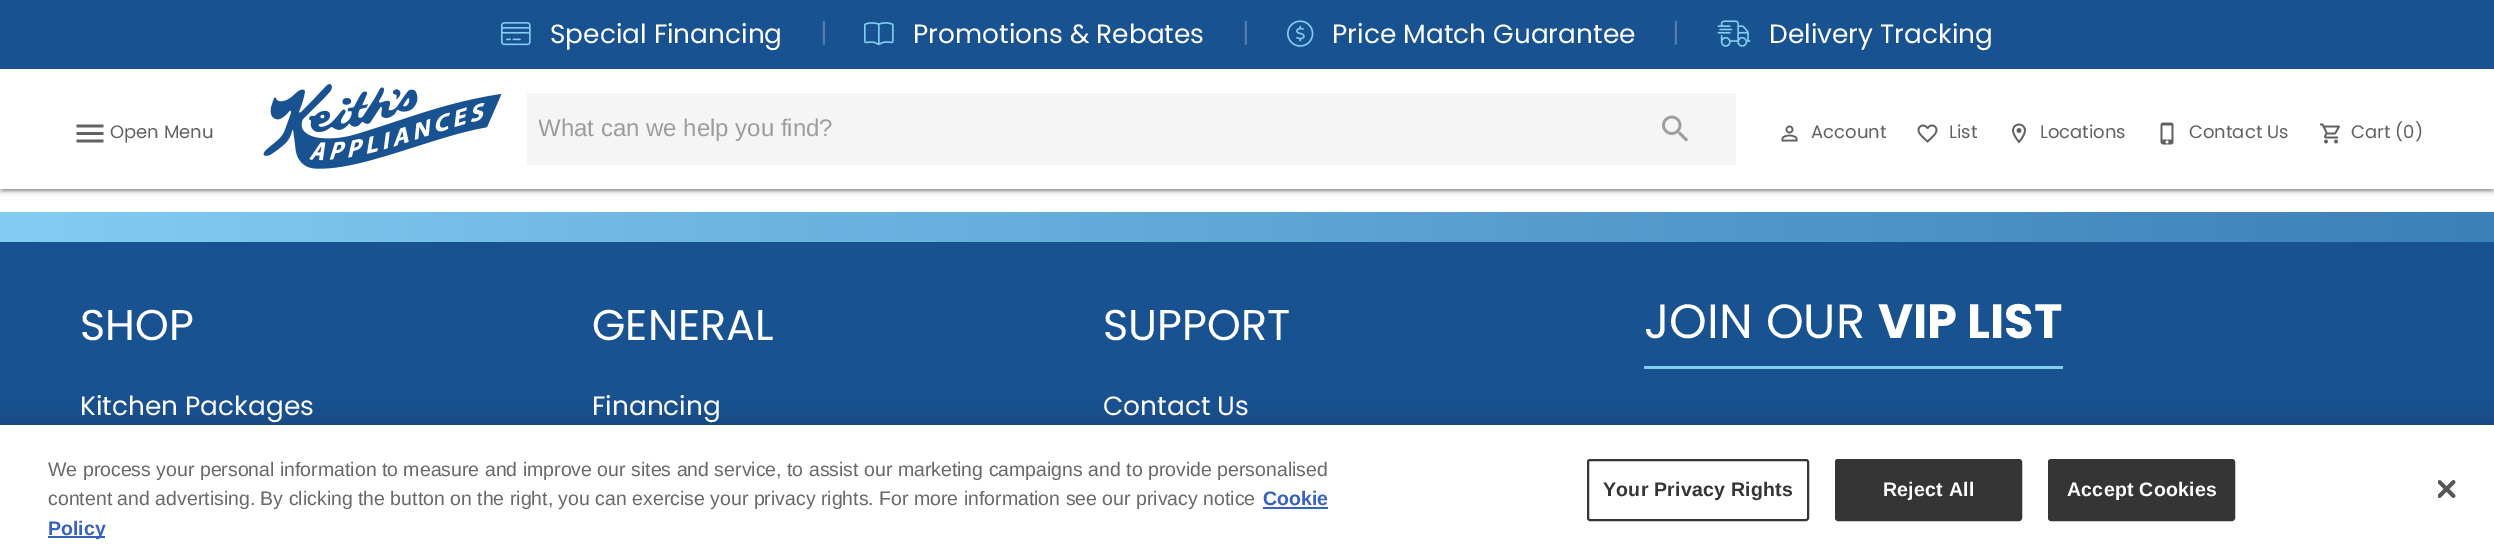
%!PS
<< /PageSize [2494 558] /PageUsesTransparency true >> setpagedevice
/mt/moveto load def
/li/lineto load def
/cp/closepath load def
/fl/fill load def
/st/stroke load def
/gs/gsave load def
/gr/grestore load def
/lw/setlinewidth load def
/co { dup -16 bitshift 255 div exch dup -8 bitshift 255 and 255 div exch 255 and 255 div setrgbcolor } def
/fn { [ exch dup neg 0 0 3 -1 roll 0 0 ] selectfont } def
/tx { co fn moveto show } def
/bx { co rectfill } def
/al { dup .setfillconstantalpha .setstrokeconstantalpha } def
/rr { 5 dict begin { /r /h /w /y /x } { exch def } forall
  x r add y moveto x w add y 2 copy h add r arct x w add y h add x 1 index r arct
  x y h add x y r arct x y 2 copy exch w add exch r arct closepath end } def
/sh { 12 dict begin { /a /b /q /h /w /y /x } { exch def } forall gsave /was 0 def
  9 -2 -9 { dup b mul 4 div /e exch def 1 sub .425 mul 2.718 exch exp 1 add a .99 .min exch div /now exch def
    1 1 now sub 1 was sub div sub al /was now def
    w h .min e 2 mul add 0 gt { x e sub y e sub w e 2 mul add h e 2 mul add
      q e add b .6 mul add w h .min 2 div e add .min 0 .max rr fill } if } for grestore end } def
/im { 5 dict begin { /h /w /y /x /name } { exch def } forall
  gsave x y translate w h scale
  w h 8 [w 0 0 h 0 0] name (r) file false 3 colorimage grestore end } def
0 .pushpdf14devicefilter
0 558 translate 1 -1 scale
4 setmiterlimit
0 0 2494 558 16#FFFFFF bx
16#000000 co
0 2 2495 189 0 4 .12 sh
0 3 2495 189 0 1.5 .14 sh
3 8 2489 183 0 1 .2 sh
0 69 2494 120 16#FFFFFF bx
0 0 2494 69 16#195291 bx
(media/1.raw) 501 22 30 24 im
(media/2.raw) 864 22 30 24 im
(media/3.raw) 1287 20 27 27 im
(media/4.raw) 1717 20 34 27 im
(media/5.raw) 76 124 28 19 im
(media/6.raw) 263 84 239 85 im
527 93 1209 72 16#F5F5F5 bx
(media/7.raw) 1662 115 27 27 im
(media/8.raw) 1781 125 17 17 im
(media/9.raw) 1917 124 21 19 im
(media/10.raw) 2012 123 14 21 im
(media/11.raw) 2160 122 14 23 im
(media/12.raw) 2320 123 20 21 im
gs 0 212 mt 2494 212 li 2494 242 li 0 242 li cp clip newpath
<< /ShadingType 2 /ColorSpace /DeviceRGB /Coords [0 227 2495 226] /Extend [true true] /Function << /FunctionType 2 /Domain [0 1] /C0 [.514 .8 .949] /C1 [.231 .506 .725] /N 1 >> >> shfill gr
0 242 2494 183 16#195291 bx
1644 366 419 3 16#83CCF2 bx
16#000000 co
0 425 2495 133 0 13.5 .2 sh
0 425 2494 133 16#FFFFFF bx
1263 507 65 2 16#3860BE bx
48 536 57 2 16#3860BE bx
16#353535 co
2 lw
1588 460 220 60 2 rr st
1836 460 185 60 2 rr gs fl gr
st
2049 460 185 60 2 rr gs fl gr
st
(media/13.raw) 2438 480 18 18 im
(Special Financing) 550 43 /Poppins-Regular 26.4 16#FFFFFF tx
(|) 820 42 /Poppins-Regular 26.4 16#537DAD tx
(Promotions & Rebates) 913 43 /Poppins-Regular 26.4 16#FFFFFF tx
(|) 1242 42 /Poppins-Regular 26.4 16#537DAD tx
(Price Match Guarantee) 1332 43 /Poppins-Regular 26.4 16#FFFFFF tx
(|) 1672 42 /Poppins-Regular 26.4 16#537DAD tx
(Delivery Tracking) 1769 43 /Poppins-Regular 26.4 16#FFFFFF tx
(Open Menu) 110 138 /Poppins-Regular 18 16#616161 tx
gs
539 116 1077 27 rectclip
(What can we help you find?) 538 136 /LiberationSans-Regular 24 16#9C9C9C tx
gr
(Account) 1811 138 /Poppins-Regular 18 16#616161 tx
(List) 1949 138 /Poppins-Regular 18 16#616161 tx
(Locations) 2040 138 /Poppins-Regular 18 16#616161 tx
(Contact Us) 2189 138 /Poppins-Regular 18 16#616161 tx
(Cart \(0\)) 2351 138 /Poppins-Regular 18 16#616161 tx
(SHOP) 80 340 /Poppins-Regular 43 16#FFFFFF tx
(Kitchen Packages) 80 415 /Poppins-Regular 26.4 16#FFFFFF tx
(GENERAL) 592 340 /Poppins-Regular 43 16#FFFFFF tx
(Financing) 592 415 /Poppins-Regular 26.4 16#FFFFFF tx
(SUPPORT) 1103 340 /Poppins-Regular 43 16#FFFFFF tx
(Contact Us) 1103 415 /Poppins-Regular 26.4 16#FFFFFF tx
(JOIN OUR) 1644 338 /Poppins-Regular 48 16#FFFFFF tx
(VIP LIST) 1878 338 /Poppins-Bold 48 16#FFFFFF tx
(We process your personal information to measure and improve our sites and service, to assist our marketing campaigns and to provide personalised) 48 476 /LiberationSans-Regular 19.5 16#696969 tx
(content and advertising. By clicking the button on the right, you can exercise your privacy rights. For more information see our privacy notice) 48 505 /LiberationSans-Regular 19.5 16#696969 tx
(Cookie) 1263 505 /LiberationSans-Bold 19.5 16#3860BE tx
(Policy) 48 535 /LiberationSans-Bold 19.5 16#3860BE tx
16#353535 co
1603 496 mt .25 0 (Your Privacy Rights) ashow
16#FFFFFF co
1883 496 mt .25 0 (Reject All) ashow
2067 496 mt .25 0 (Accept Cookies) ashow
.poppdf14devicefilter showpage
